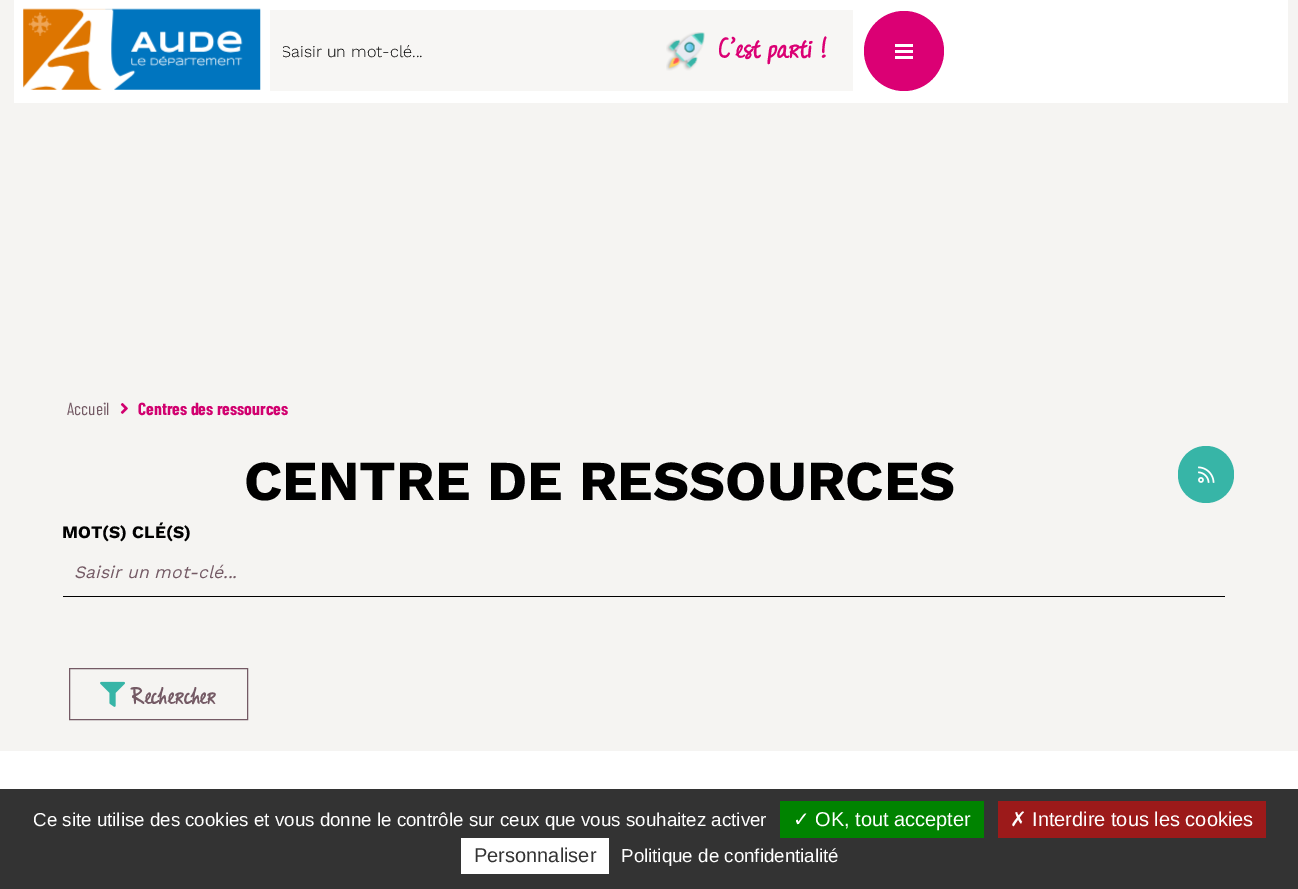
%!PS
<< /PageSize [1298 889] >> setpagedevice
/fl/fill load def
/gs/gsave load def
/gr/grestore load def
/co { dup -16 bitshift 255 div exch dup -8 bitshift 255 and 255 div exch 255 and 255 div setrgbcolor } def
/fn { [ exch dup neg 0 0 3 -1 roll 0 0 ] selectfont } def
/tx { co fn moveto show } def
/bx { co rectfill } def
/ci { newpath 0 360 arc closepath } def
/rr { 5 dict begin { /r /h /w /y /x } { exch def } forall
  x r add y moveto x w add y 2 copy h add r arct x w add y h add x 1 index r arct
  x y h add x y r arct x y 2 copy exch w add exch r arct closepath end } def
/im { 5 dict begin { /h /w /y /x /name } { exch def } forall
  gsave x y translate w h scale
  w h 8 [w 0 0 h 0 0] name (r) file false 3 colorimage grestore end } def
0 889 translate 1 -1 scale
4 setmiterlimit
0 0 1298 889 16#FFFFFF bx
0 0 1298 751 16#F5F4F2 bx
14 0 1274 103 16#FFFFFF bx
(media/1.raw) 23 8 238 82 im
270 10 583 81 16#F7F6F4 bx
(media/2.raw) 666 32 39 39 im
16#DB0074 co
904 51 40 ci fl
895 44 18 3 16#FFFFFF bx
895 50 18 3 16#FFFFFF bx
895 56 18 3 16#FFFFFF bx
(media/3.raw) 120 403 8 11 im
16#37B5A7 co
1178 446 56 57 28 rr fl
(media/4.raw) 1198 466 17 17 im
63 596 1162 1 16#000000 bx
16#745A65 co
69.5 668.5 178 51 rectstroke
(media/5.raw) 100 681 25 26 im
0 789 1298 100 16#333333 bx
780 801 204 37 16#008300 bx
998 801 268 37 16#9C1A1A bx
461 838 148 36 16#FFFFFF bx
gs
283 43 350 18 rectclip
(Saisir un mot-clé...) 281 57 /WorkSans-Light 16.25 16#000000 tx
gr
(C’est parti !) 719 58 /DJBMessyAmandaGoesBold-Bold 29 16#DB0074 tx
(Accueil) 67 415 /BarlowCondensed-Regular 17.5 16#745A65 tx
(Centres des ressources) 138 415 /BarlowCondensed-Bold 17.5 16#D1006F tx
(CENTRE DE RESSOURCES) 244 500 /WorkSans-Bold 56.25 16#000000 tx
(MOT\(S\) CLÉ\(S\)) 62 538 /WorkSans-Bold 17.5 16#000000 tx
(Saisir un mot-clé...) 74 578 /WorkSans-Italic 17.5 16#745A65 tx
(Rechercher) 131 704 /DJBMessyAmandaGoesBold-Bold 25 16#745A65 tx
(Ce site utilise des cookies et vous donne le contrôle sur ceux que vous souhaitez activer) 33 826 /LiberationSans-Regular 18.75 16#FFFFFF tx
(✓) 793 826 /DejaVuSans-Regular 20 16#FFFFFF tx
(OK, tout accepter) 815 826 /LiberationSans-Regular 20 16#FFFFFF tx
(✗) 1010 826 /DejaVuSans-Regular 20 16#FFFFFF tx
(Interdire tous les cookies) 1032 826 /LiberationSans-Regular 20 16#FFFFFF tx
(Personnaliser) 474 862 /LiberationSans-Regular 20 16#333333 tx
(Politique de confidentialité) 621 862 /LiberationSans-Regular 18.75 16#FFFFFF tx
showpage
